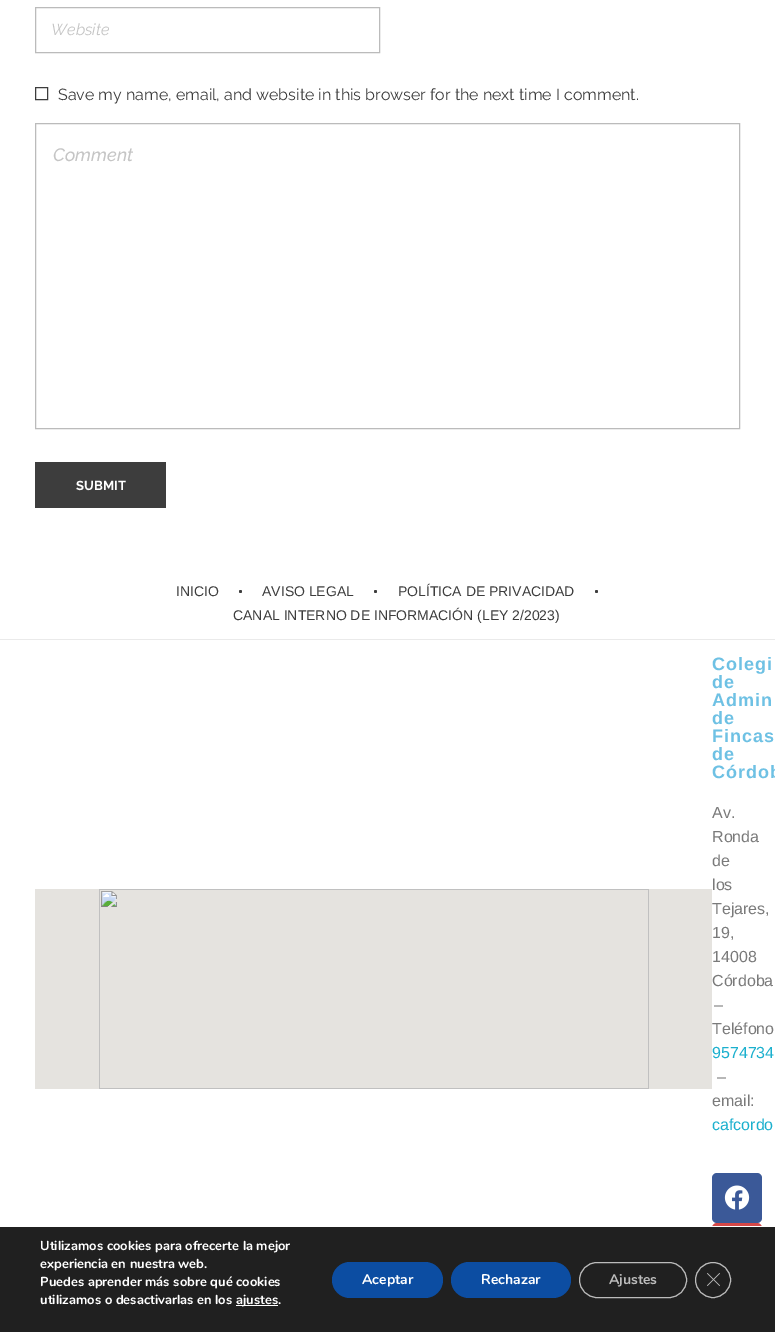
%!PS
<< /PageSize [775 1332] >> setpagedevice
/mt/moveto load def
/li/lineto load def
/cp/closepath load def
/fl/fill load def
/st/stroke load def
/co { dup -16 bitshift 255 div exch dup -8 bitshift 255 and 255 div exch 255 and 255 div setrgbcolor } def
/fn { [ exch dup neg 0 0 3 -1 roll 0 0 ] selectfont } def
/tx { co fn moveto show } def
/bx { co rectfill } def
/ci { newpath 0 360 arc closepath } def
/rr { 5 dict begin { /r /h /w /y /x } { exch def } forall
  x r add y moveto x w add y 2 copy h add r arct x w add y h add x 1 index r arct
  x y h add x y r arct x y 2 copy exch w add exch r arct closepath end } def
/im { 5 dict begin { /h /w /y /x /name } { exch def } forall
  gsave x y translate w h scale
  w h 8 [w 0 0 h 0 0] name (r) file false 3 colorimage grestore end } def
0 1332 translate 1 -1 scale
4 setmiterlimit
0 0 775 1332 16#FFFFFF bx
16#BBBBBB co
35.5 7.5 344 45 rectstroke
16#3D3D3D co
35.5 87.5 12 12 rectstroke
16#BBBBBB co
35.5 123.5 704 305 rectstroke
35 462 131 46 16#3D3D3D bx
240.5 591.5 1.5 ci fl
375.5 591.5 1.5 ci fl
596.5 591.5 1.5 ci fl
0 639 775 1 16#EAEAEA bx
(media/1.raw) 35 889 677 200 im
16#3B5998 co
712 1173 50 50 5 rr fl
(media/2.raw) 724 1185 26 25 im
16#D54848 co
712 1223 50 50 5 rr fl
0 1227 775 105 16#202020 bx
712 1226 50 1 16#FFFFFF bx
236 1305 42 1 16#FFFFFF bx
16#0C4DA2 co
332 1262 111 36 18 rr fl
451 1262 120 36 18 rr fl
16#BCBCBC co
579.5 1262.5 107 35 17.5 rr st
713 1280 17.5 ci st
719.5 1273 mt 720 1273.5 li 707.5 1286 li 707 1285.5 li cp fl
707 1273.5 mt 707.5 1273 li 720 1285.5 li 719.5 1286 li cp fl
(Website) 51 35 /Raleway-Italic 16 16#C5C5C5 tx
(Save my name, email, and website in this browser for the next time I comment.) 58 100 /Raleway-Regular 16 16#3D3D3D tx
(Comment) 53 161 /Raleway-MediumItalic 18 16#C5C5C5 tx
(SUBMIT) 76 490 /Raleway-Bold 13 16#FFFFFF tx
(INICIO) 176 596 /LiberationSans-Regular 14 16#3D3D3D tx
(AVISO LEGAL) 262 596 /LiberationSans-Regular 14 16#3D3D3D tx
(POLÍTICA DE PRIVACIDAD) 398 596 /LiberationSans-Regular 14 16#3D3D3D tx
(CANAL INTERNO DE INFORMACIÓN \(LEY 2/2023\)) 233 620 /LiberationSans-Regular 14 16#3D3D3D tx
/LiberationSans-Bold 18 fn
16#6EC1E4 co
712 670 mt 1 0 (Colegi) ashow
712 688 mt 1 0 (de) ashow
712 706 mt 1 0 (Admin) ashow
712 724 mt 1 0 (de) ashow
712 742 mt 1 0 (Fincas) ashow
712 760 mt 1 0 (de) ashow
712 778 mt 1 0 (Córdob) ashow
(Av.) 712 818 /LiberationSans-Regular 16 16#7A7A7A tx
(Ronda) 712 842 /LiberationSans-Regular 16 16#7A7A7A tx
(de) 712 866 /LiberationSans-Regular 16 16#7A7A7A tx
(los) 712 890 /LiberationSans-Regular 16 16#7A7A7A tx
(Tejares,) 712 914 /LiberationSans-Regular 16 16#7A7A7A tx
(19,) 712 938 /LiberationSans-Regular 16 16#7A7A7A tx
(14008) 712 962 /LiberationSans-Regular 16 16#7A7A7A tx
(Córdoba) 712 986 /LiberationSans-Regular 16 16#7A7A7A tx
(–) 714 1010 /LiberationSans-Regular 16 16#7A7A7A tx
(Teléfono) 712 1034 /LiberationSans-Regular 16 16#7A7A7A tx
(9574734) 712 1058 /LiberationSans-Regular 16 16#1BB0CE tx
(–) 717 1082 /LiberationSans-Regular 16 16#7A7A7A tx
(email:) 712 1106 /LiberationSans-Regular 16 16#7A7A7A tx
(cafcordo) 712 1130 /LiberationSans-Regular 16 16#1BB0CE tx
(Utilizamos cookies para ofrecerte la mejor) 40 1250 /Nunito-Bold 13 16#FFFFFF tx
(experiencia en nuestra web.) 40 1268 /Nunito-Bold 13 16#FFFFFF tx
(Puedes aprender más sobre qué cookies) 40 1286 /Nunito-Bold 13 16#FFFFFF tx
(utilizamos o desactivarlas en los) 40 1304 /Nunito-Bold 13 16#FFFFFF tx
(ajustes) 236 1304 /Nunito-Bold 13 16#FFFFFF tx
(.) 278 1304 /Nunito-Bold 13 16#FFFFFF tx
(Aceptar) 362 1284 /Nunito-Bold 14 16#FFFFFF tx
(Rechazar) 481 1284 /Nunito-Bold 14 16#FFFFFF tx
(Ajustes) 609 1284 /Nunito-Bold 14 16#BCBCBC tx
showpage
